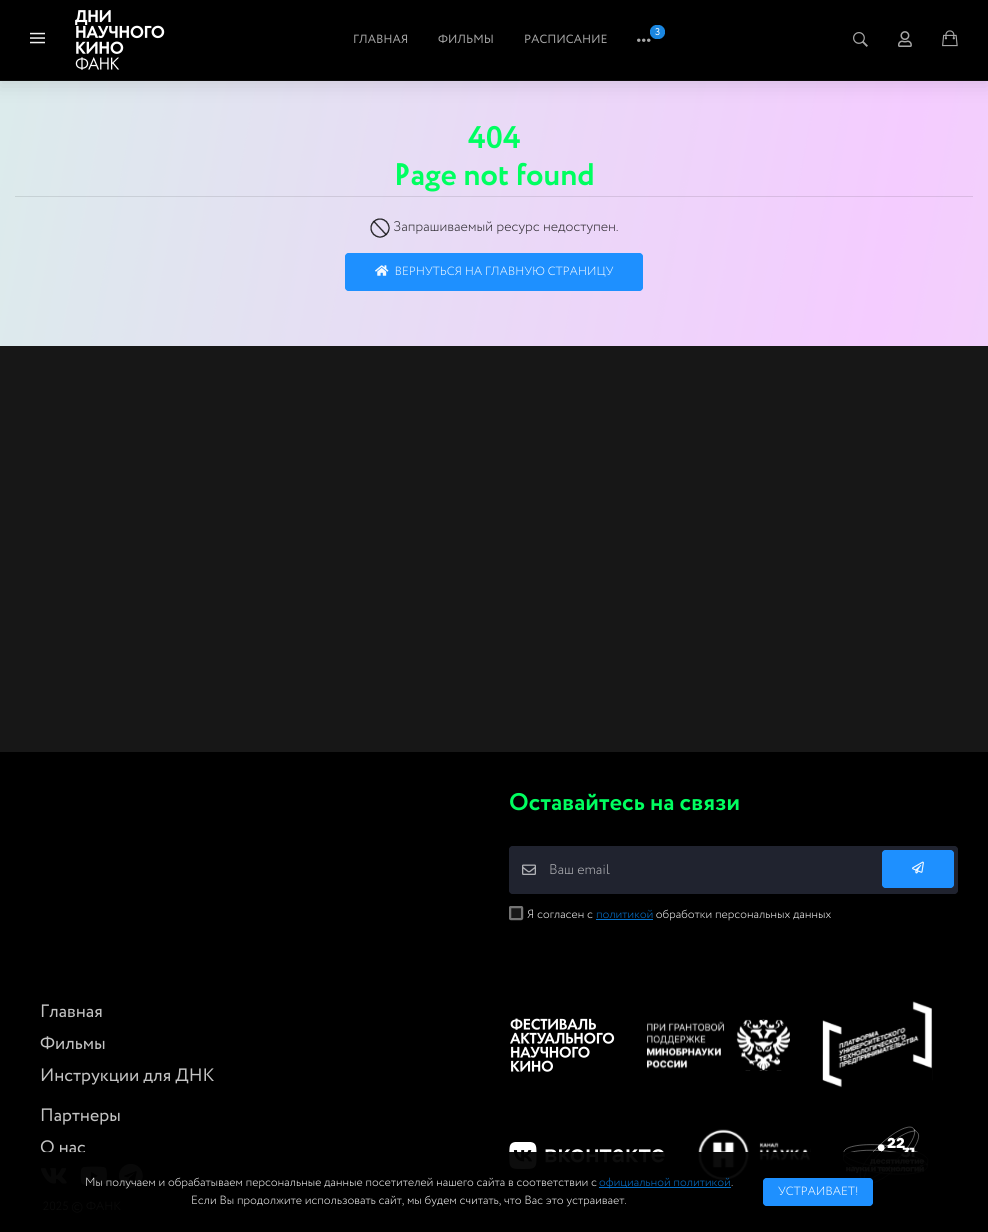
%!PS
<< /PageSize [988 1232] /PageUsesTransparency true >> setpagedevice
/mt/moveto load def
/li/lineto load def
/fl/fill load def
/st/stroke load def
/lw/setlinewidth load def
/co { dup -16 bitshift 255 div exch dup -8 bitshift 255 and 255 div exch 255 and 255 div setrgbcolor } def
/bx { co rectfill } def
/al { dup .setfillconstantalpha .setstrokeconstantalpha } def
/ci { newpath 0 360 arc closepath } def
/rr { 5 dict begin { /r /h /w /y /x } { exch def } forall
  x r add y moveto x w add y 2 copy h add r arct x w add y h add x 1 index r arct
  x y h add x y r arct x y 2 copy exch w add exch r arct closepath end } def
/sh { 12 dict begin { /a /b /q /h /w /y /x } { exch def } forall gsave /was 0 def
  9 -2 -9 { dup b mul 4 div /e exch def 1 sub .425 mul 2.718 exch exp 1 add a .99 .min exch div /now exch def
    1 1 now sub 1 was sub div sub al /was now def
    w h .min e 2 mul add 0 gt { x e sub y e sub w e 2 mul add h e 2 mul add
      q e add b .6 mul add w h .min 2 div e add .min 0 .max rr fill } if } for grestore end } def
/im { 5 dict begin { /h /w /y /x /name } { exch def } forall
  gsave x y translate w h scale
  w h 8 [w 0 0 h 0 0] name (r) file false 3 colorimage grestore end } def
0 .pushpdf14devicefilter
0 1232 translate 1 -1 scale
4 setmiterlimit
0 0 988 1232 16#171717 bx
(media/11.raw) 0 81 988 265 im
16#000000 co
0 5 988 81 0 7.5 .08 sh
0 0 988 80 16#000000 bx
0 80 988 1 16#0D0D0D bx
(media/1.raw) 30 32 15 12 im
(media/2.raw) 75 10 90 60 im
(media/3.raw) 354 34 54 9 im
(media/4.raw) 438 34 55 10 im
(media/5.raw) 525 34 82 10 im
(media/7.raw) 637 38 14 4 im
16#1A86E0 co
650 25 15 14 7 rr fl
(media/6.raw) 655 28 5 8 im
(media/8.raw) 853 32 15 15 im
(media/9.raw) 898 31 14 16 im
(media/10.raw) 942 30 16 17 im
0.1 al
15 196 958 1 16#000000 bx
1 al
(media/12.raw) 468 125 52 24 im
(media/13.raw) 397 162 196 30 im
16#2E2C31 co
1.1 lw
380 228 9 ci st
0.8 al
16#000000 co
374 221.5 mt 386 234.5 li st
1 al
(media/14.raw) 394 221 224 13 im
16#1E90FF co
345 253 298 38 4 rr fl
(media/15.raw) 375 265 14 11 im
(media/16.raw) 395 266 219 11 im
0 752 988 480 16#000000 bx
(media/17.raw) 510 792 229 19 im
16#20232F co
509 846 449 48 4 rr fl
(media/18.raw) 522 864 14 11 im
(media/19.raw) 550 864 60 11 im
16#1E90FF co
882 850 72 38 4 rr fl
(media/20.raw) 912 861 12 13 im
16#181818 co
509 906 14 14 2 rr fl
0.4 al
16#FFFFFF co
2 lw
510 907 12 12 1 rr st
1 al
(media/21.raw) 527 909 66 10 im
(media/22.raw) 596 909 57 10 im
(media/23.raw) 656 909 175 12 im
596 919 57 1 16#0672CC bx
(media/24.raw) 41 1004 61 14 im
(media/25.raw) 40 1036 65 14 im
(media/26.raw) 41 1068 173 17 im
(media/27.raw) 41 1108 79 17 im
(media/28.raw) 40 1140 46 14 im
(media/29.raw) 41 1168 26 16 im
(media/30.raw) 80 1166 27 19 im
(media/31.raw) 119 1164 24 24 im
(media/32.raw) 43 1201 78 12 im
(media/33.raw) 510 1018 105 54 im
(media/34.raw) 647 1019 143 52 im
(media/35.raw) 822 1001 111 87 im
(media/36.raw) 509 1142 156 27 im
(media/37.raw) 698 1129 113 51 im
(media/38.raw) 843 1126 86 58 im
0.95 al
41 1152 888 61 16#000000 bx
1 al
(media/39.raw) 86 1177 511 12 im
599 1187 132 1 16#0672CC bx
(media/40.raw) 599 1177 131 12 im
(media/41.raw) 731 1185 2 1 im
(media/42.raw) 192 1195 434 12 im
16#1E90FF co
763 1178 110 28 4 rr fl
(media/43.raw) 778 1186 80 10 im
.poppdf14devicefilter showpage
